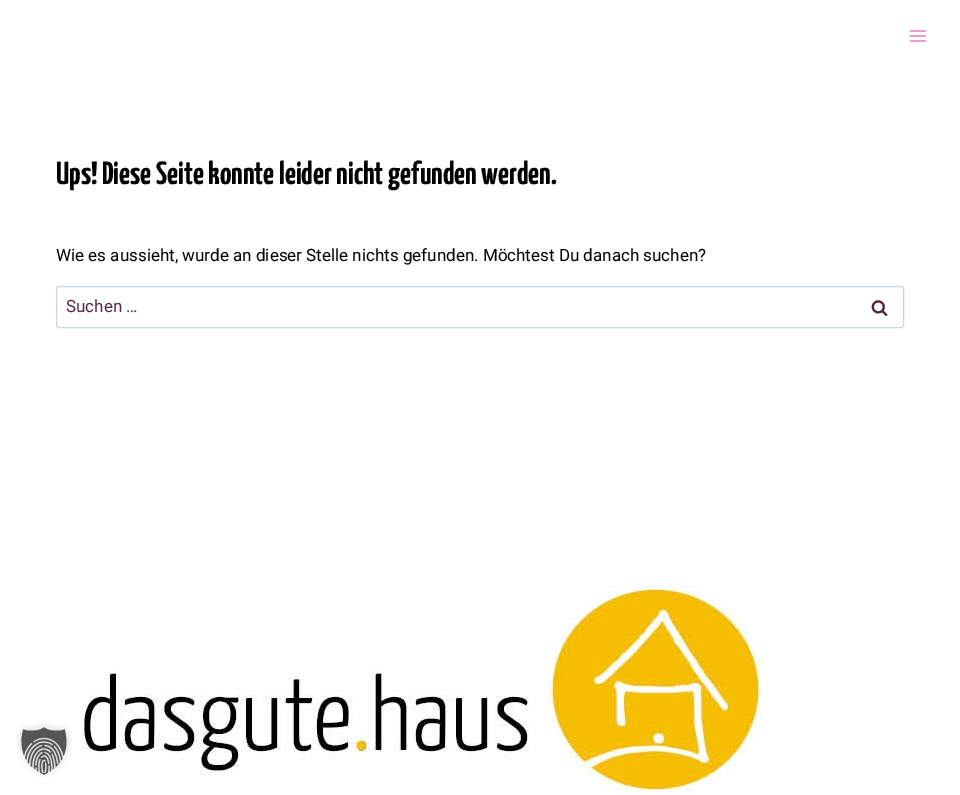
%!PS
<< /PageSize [960 795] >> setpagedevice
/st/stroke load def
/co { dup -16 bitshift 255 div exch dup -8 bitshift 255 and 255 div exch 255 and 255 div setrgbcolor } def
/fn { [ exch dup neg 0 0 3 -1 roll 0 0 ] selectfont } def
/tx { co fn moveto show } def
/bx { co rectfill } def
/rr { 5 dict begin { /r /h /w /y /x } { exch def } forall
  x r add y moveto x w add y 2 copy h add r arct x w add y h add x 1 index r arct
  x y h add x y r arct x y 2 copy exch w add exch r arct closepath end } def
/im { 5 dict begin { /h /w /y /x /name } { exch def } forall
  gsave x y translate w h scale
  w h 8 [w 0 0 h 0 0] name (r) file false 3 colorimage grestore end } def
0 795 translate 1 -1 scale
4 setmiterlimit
0 0 960 795 16#FFFFFF bx
(media/1.raw) 909 30 18 12 im
16#CBD5E0 co
56.5 286.5 847 41 2.5 rr st
(media/2.raw) 871 300 17 16 im
(media/3.raw) 80 585 681 208 im
(media/4.raw) 16 723 56 54 im
(Ups! Diese Seite konnte leider nicht gefunden werden.) 56 184 /YanoneKaffeesatz-Bold 32 16#000000 tx
(Wie es aussieht, wurde an dieser Stelle nichts gefunden. Möchtest Du danach suchen?) 56 261 /Roboto-Regular 17 16#000000 tx
(Suchen …) 66 312 /Roboto-Regular 17 16#512A40 tx
showpage
